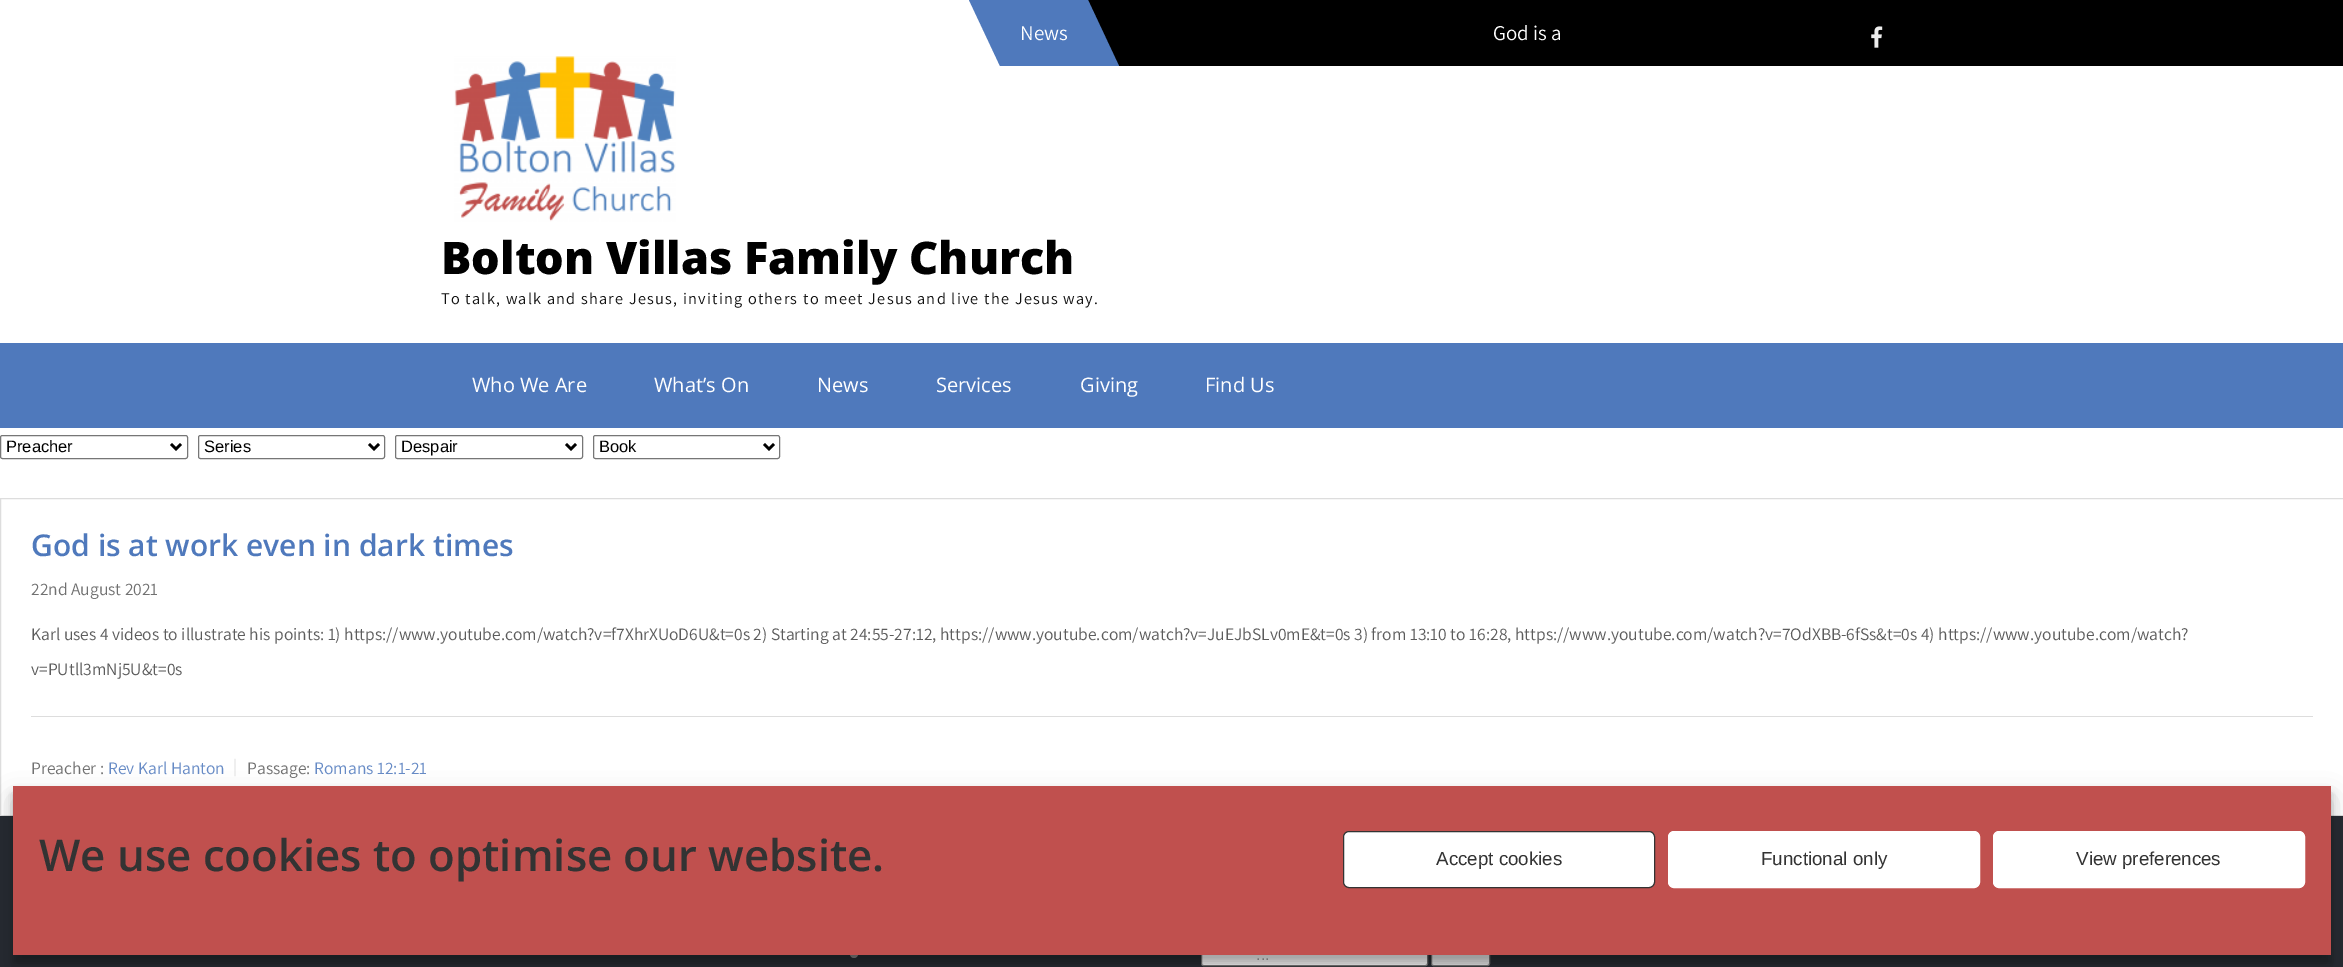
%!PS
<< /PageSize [2343 967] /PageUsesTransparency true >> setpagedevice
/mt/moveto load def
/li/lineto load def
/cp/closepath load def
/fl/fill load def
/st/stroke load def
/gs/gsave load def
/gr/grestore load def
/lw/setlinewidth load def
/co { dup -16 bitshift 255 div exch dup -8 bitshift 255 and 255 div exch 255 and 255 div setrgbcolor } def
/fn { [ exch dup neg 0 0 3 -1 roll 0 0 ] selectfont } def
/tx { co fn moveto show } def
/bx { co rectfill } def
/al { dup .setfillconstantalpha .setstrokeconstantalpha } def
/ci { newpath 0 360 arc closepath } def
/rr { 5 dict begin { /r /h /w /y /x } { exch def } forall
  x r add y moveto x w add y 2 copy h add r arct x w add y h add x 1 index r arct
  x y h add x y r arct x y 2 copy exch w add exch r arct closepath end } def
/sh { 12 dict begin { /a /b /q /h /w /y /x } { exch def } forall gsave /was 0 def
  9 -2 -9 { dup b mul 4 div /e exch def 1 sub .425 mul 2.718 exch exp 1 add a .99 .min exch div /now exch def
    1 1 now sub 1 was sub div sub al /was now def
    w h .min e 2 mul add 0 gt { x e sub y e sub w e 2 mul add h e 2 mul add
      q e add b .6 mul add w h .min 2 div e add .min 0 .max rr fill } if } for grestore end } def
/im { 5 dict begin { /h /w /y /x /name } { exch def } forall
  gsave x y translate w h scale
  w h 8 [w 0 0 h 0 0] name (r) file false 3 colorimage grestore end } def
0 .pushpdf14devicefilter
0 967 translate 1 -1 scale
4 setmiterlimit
0 0 2343 967 16#FFFFFF bx
1088 0 1255 66 16#000000 bx
16#4F79BC co
969 0 mt 1088 0 li 1119 66 li 1000 66 li cp fl
(media/1.raw) 1871 26 12 22 im
(media/2.raw) 454 56 222 166 im
0 343 2343 85 16#4F79BC bx
16#767676 co
.5 435.5 187 23 2 rr st
16#000000 co
2.5 lw
171 444 mt 176 449 li 181 444 li st
16#767676 co
1 lw
198.5 435.5 186 23 2 rr st
16#000000 co
2.5 lw
369 444 mt 374 449 li 379 444 li st
16#767676 co
1 lw
395.5 435.5 187 23 2 rr st
16#000000 co
2.5 lw
566 444 mt 571 449 li 576 444 li st
16#767676 co
1 lw
593.5 435.5 186 23 2 rr st
16#000000 co
2.5 lw
764 444 mt 769 449 li 774 444 li st
16#DDDDDD co
1 lw
.5 498.5 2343 317 rectstroke
31 716 2282 1 16#DDDDDD bx
0 816 2343 151 16#262A31 bx
16#8A8989 co
854 954 4 ci fl
16#FFFFFF co
1201.5 943.5 226 22 2 rr gs fl gr
16#767676 co
st
16#EFEFEF co
1431.5 943.5 58 22 2 rr gs fl gr
16#767676 co
st
16#000000 co
13 794 2318 169 0 4 .23 sh
13 799 2318 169 0 12.5 .19 sh
13 786 2318 169 16#C0504E bx
16#FFFFFF co
1343.5 831.5 311 56 5.5 rr gs fl gr
16#333333 co
st
16#FFFFFF co
1668.5 831.5 311 56 5.5 rr gs fl gr
st
1993.5 831.5 311 56 5.5 rr gs fl gr
st
(News) 1020 40 /Assistant-Regular 21 16#FFFFFF tx
gs
1160 6 400 54 rectclip
(God is a) 1493 40 /Assistant-Regular 21 16#FFFFFF tx
gr
(Bolton Villas Family Church) 441 274 /OpenSans-ExtraBold 45 16#000000 tx
/Assistant-Regular 16.25 fn
16#111111 co
441 304 mt 1.25 0 (To talk, walk and share Jesus, inviting others to meet Jesus and live the Jesus way.) ashow
(Who We Are) 472 392 /OpenSans-Regular 20 16#FFFFFF tx
(What’s On) 654 392 /OpenSans-Regular 20 16#FFFFFF tx
(News) 817 392 /OpenSans-Regular 20 16#FFFFFF tx
(Services) 936 392 /OpenSans-Regular 20 16#FFFFFF tx
(Giving) 1080 392 /OpenSans-Regular 20 16#FFFFFF tx
(Find Us) 1205 392 /OpenSans-Regular 20 16#FFFFFF tx
(Preacher) 6 452 /LiberationSans-Regular 16.5 16#000000 tx
(Series) 204 452 /LiberationSans-Regular 16.5 16#000000 tx
(Despair) 401 452 /LiberationSans-Regular 16.5 16#000000 tx
(Book) 599 452 /LiberationSans-Regular 16.5 16#000000 tx
(God is at work even in dark times) 31 556 /OpenSans-SemiBold 30 16#4F79BC tx
(22nd August 2021) 31 595 /Assistant-Regular 17.5 16#717171 tx
(Karl uses 4 videos to illustrate his points: 1\) https://www.youtube.com/watch?v=f7XhrXUoD6U&t=0s 2\) Starting at 24:55-27:12, https://www.youtube.com/watch?v=JuEJbSLv0mE&t=0s 3\) from 13:10 to 16:28, https://www.youtube.com/watch?v=7OdXBB-6fSs&t=0s 4\) https://www.youtube.com/watch?) 31 640 /Assistant-Regular 17.5 16#5C5C5C tx
(v=PUtll3mNj5U&t=0s) 31 675 /Assistant-Regular 17.5 16#5C5C5C tx
(Preacher :) 31 774 /Assistant-Regular 17.5 16#717171 tx
(Rev Karl Hanton) 108 774 /Assistant-Regular 17.5 16#668AC5 tx
(|) 233 772 /Assistant-Regular 17.5 16#E1E1E1 tx
(Passage:) 247 774 /Assistant-Regular 17.5 16#717171 tx
(Romans 12:1-21) 314 774 /Assistant-Regular 17.5 16#668AC5 tx
(...) 1256 960 /LiberationSans-Regular 16.5 16#717171 tx
(We use cookies to optimise our website.) 39 871 /OpenSans-SemiBold 43.75 16#333333 tx
(Accept cookies) 1436 865 /LiberationSans-Regular 18.75 16#333333 tx
(Functional only) 1761 865 /LiberationSans-Regular 18.75 16#333333 tx
(View preferences) 2076 865 /LiberationSans-Regular 18.75 16#333333 tx
.poppdf14devicefilter showpage
